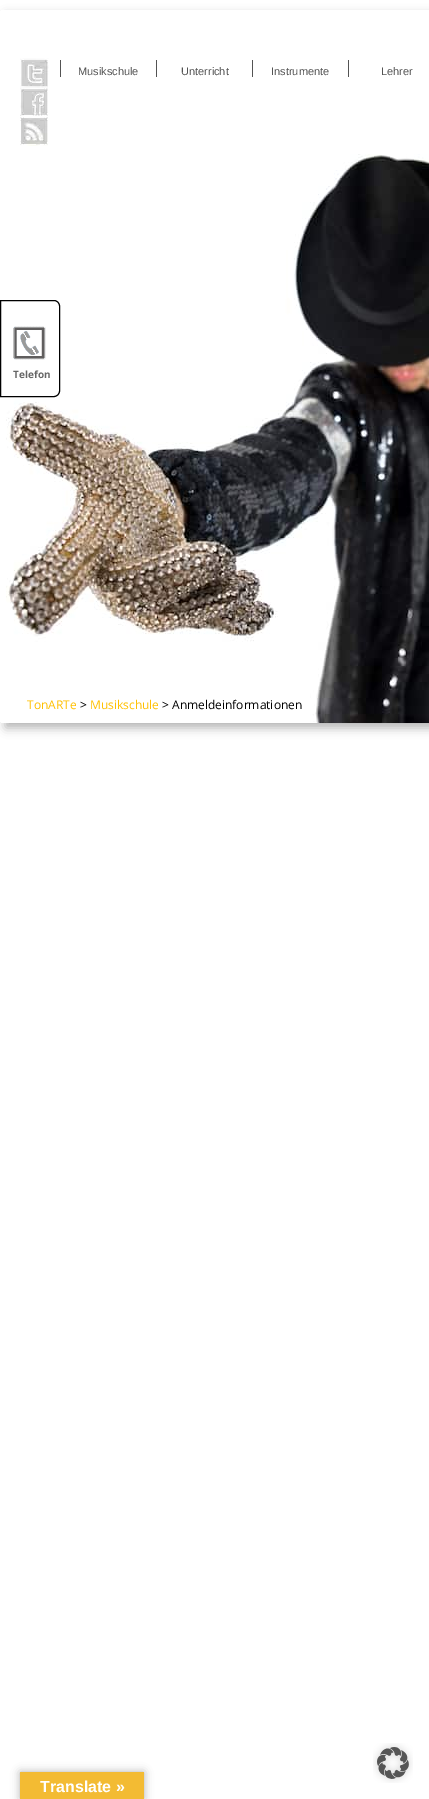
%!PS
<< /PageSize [429 1799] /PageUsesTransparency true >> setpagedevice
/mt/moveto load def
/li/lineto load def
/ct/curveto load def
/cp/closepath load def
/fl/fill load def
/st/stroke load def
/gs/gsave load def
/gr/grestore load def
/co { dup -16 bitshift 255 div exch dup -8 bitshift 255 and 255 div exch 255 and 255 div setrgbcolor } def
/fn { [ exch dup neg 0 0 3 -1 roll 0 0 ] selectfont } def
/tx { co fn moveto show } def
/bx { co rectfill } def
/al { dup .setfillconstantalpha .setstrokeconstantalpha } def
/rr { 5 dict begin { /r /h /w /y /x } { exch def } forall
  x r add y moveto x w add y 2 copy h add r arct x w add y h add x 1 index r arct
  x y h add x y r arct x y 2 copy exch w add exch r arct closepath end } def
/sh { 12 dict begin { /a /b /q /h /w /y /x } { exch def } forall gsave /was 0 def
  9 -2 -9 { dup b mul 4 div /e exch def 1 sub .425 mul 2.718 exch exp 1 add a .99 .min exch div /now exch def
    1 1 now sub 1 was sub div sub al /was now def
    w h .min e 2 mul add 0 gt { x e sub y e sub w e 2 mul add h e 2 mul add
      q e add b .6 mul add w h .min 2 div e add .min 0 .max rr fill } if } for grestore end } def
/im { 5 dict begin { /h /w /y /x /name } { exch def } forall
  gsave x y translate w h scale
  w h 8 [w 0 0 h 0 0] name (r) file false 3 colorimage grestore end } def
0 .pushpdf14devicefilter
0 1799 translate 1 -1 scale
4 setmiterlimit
0 0 429 1799 16#FFFFFF bx
gs
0 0 mt 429 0 li 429 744 li 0 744 li cp 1 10 mt 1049 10 li 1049.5 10 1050 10.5 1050 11 ct 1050 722 li 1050 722.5 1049.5 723 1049 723 ct 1 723 li .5 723 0 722.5 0 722 ct 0 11 li 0 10.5 .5 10 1 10 ct cp eoclip newpath
16#B3B3B3 co
5 15 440 713 1 5 1 sh
gr
(media/1.raw) 6 154 423 569 im
(media/2.raw) 20 58 29 30 im
(media/3.raw) 20 88 28 28 im
(media/4.raw) 20 117 28 29 im
60 60 1 17 16#535353 bx
156 60 1 17 16#535353 bx
252 60 1 17 16#535353 bx
348 60 1 17 16#535353 bx
16#FFFFFF co
.5 300.5 mt 54 300.5 li 57 300.5 59.5 303 59.5 306 ct 59.5 391 li 59.5 394 57 396.5 54 396.5 ct .5 396.5 li cp gs fl gr
16#000000 co
st
(media/5.raw) 13 326 33 34 im
(media/6.raw) 373 1743 40 40 im
20 1772 124 27 0 4.5 .3 sh
20 1772 124 27 16#F3BB33 bx
(Musikschule) 78 75 /LiberationSans-Regular 11 16#535353 tx
(Unterricht) 181 75 /LiberationSans-Regular 11 16#535353 tx
(Instrumente) 271 75 /LiberationSans-Regular 11 16#535353 tx
(Lehrer) 381 75 /LiberationSans-Regular 11 16#535353 tx
(TonARTe) 27 709 /OpenSans-Regular 12 16#FFC000 tx
(>) 80 709 /OpenSans-Regular 12 16#000000 tx
(Musikschule) 90 709 /OpenSans-Regular 12 16#FFC000 tx
(> Anmeldeinformationen) 162 709 /OpenSans-Regular 12 16#000000 tx
(Telefon) 13 378 /OpenSans-Bold 10 16#666666 tx
(Translate ») 40 1792 /LiberationSans-Bold 16 16#FFFFFF tx
.poppdf14devicefilter showpage
